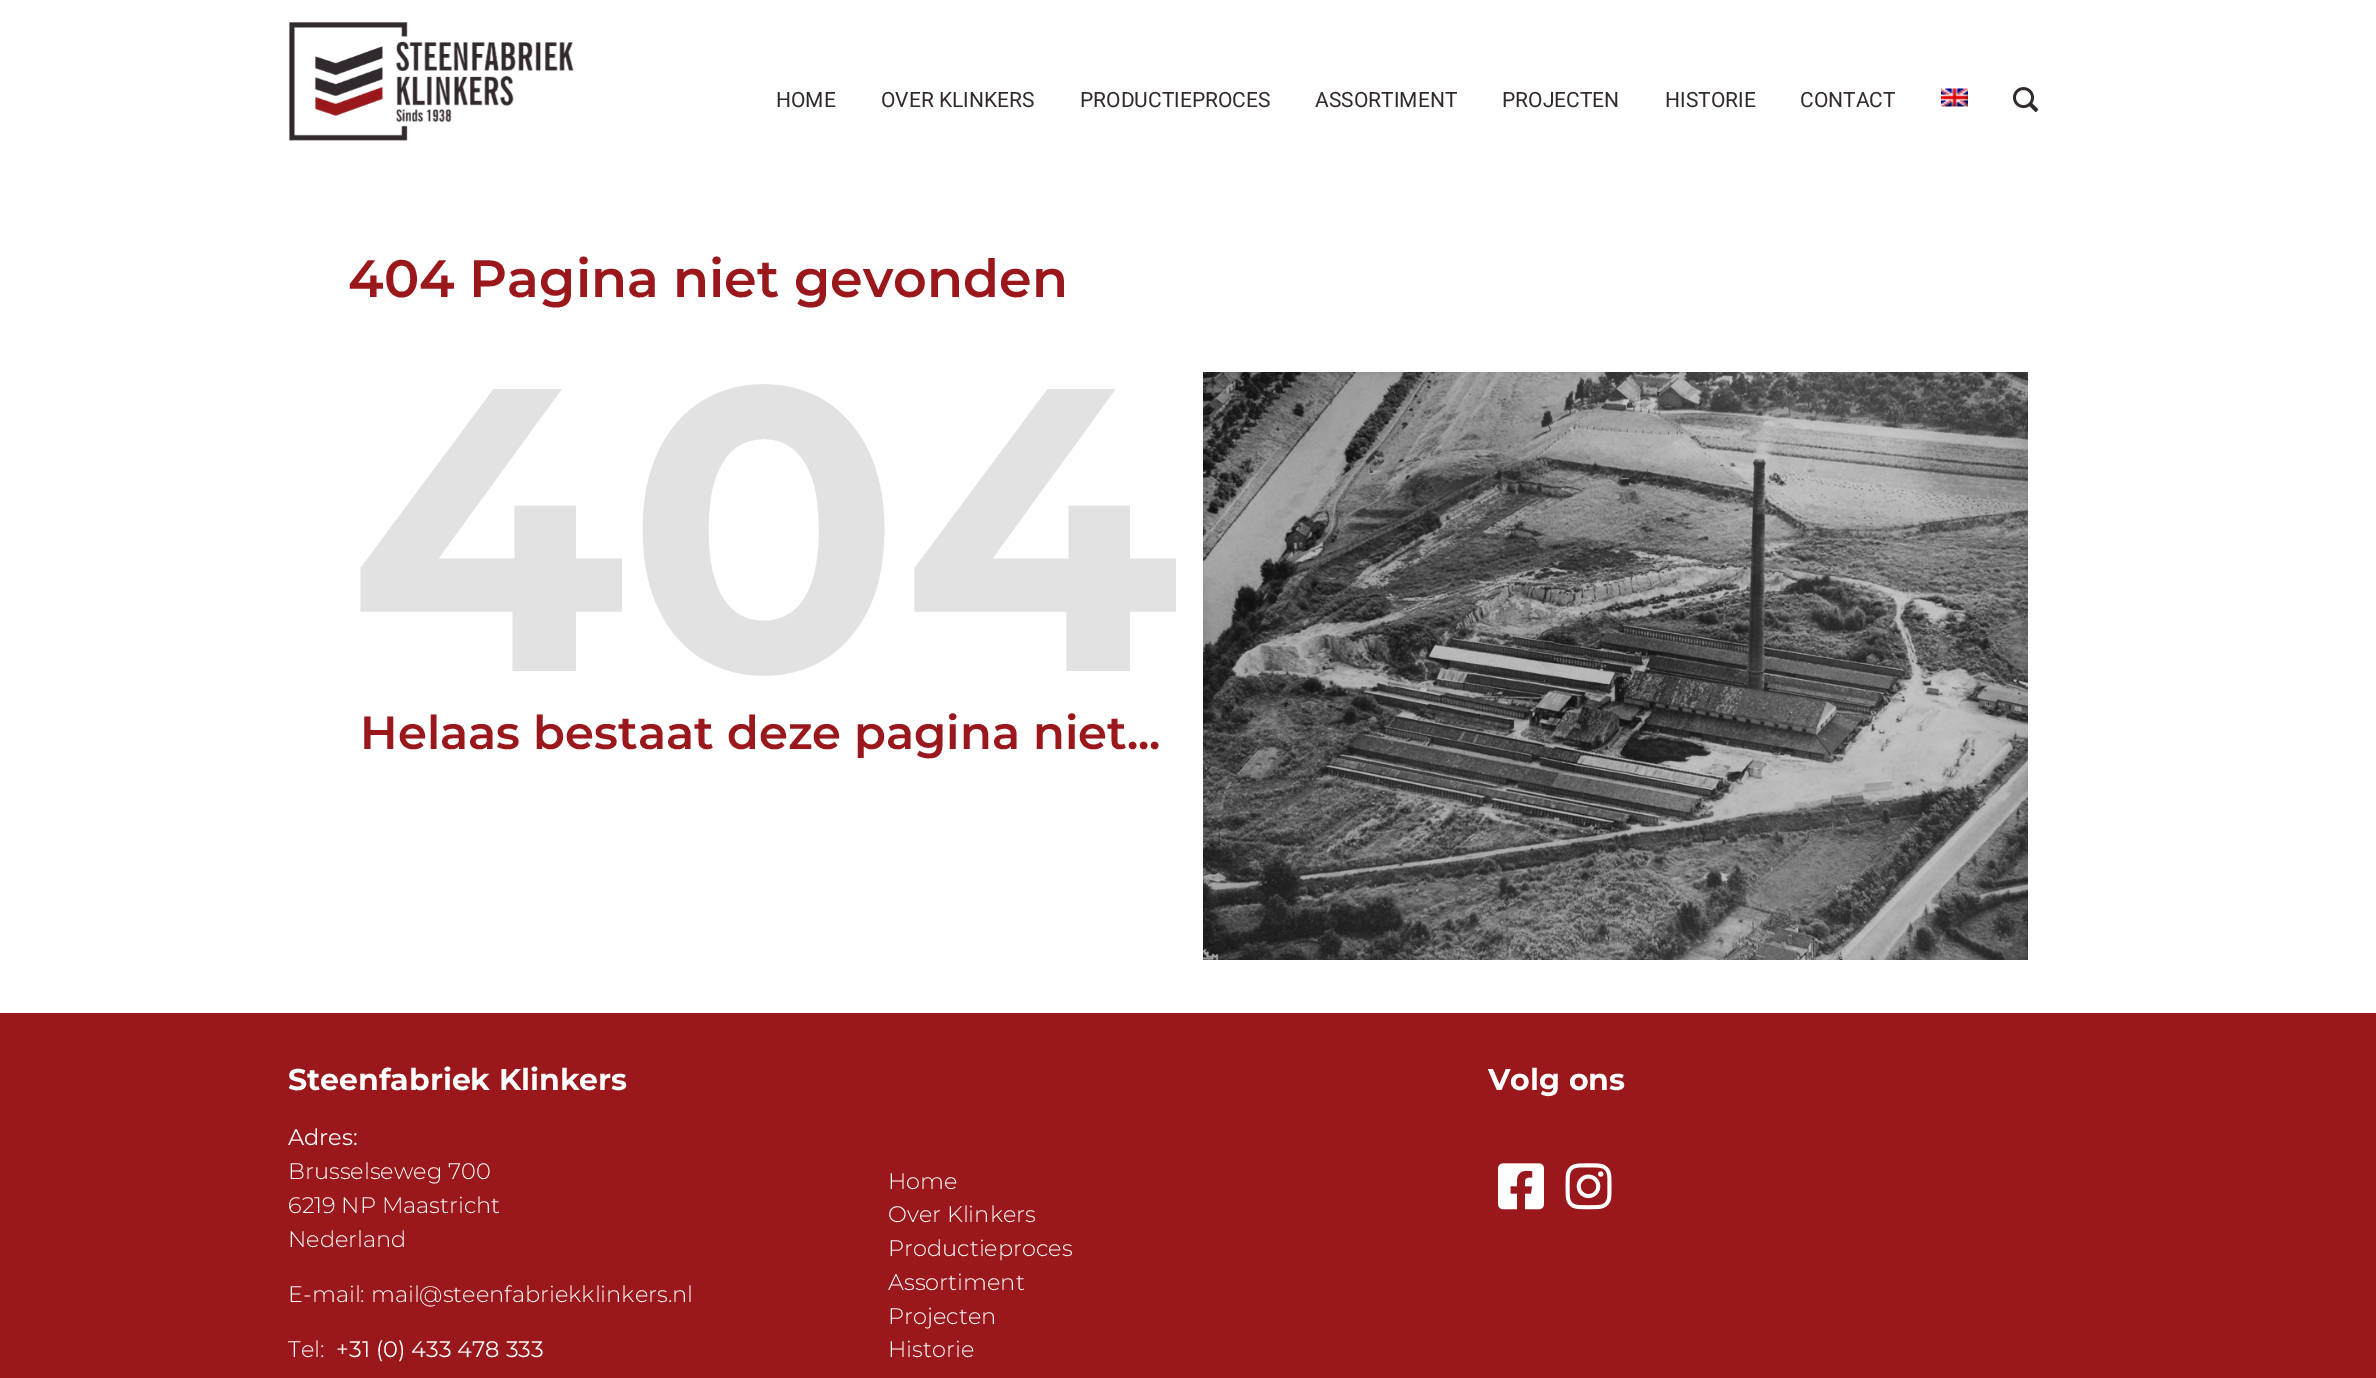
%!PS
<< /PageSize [2376 1378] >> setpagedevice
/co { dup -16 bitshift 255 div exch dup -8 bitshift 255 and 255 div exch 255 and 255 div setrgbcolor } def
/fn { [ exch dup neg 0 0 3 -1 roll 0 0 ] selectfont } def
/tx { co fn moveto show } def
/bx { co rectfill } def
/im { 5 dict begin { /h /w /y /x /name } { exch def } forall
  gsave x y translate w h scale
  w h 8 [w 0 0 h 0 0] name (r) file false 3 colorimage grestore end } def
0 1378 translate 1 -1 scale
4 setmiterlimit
0 0 2376 1378 16#FFFFFF bx
(media/1.raw) 289 21 285 120 im
(media/2.raw) 1941 88 27 19 im
(media/3.raw) 2013 87 26 26 im
(media/4.raw) 1203 372 825 588 im
0 1013 2376 365 16#9A171C bx
(media/5.raw) 1498 1163 46 47 im
(media/6.raw) 1565 1163 47 47 im
(HOME) 776 107 /Roboto-Regular 21 16#32292E tx
(OVER KLINKERS) 881 107 /Roboto-Regular 21 16#32292E tx
(PRODUCTIEPROCES) 1080 107 /Roboto-Regular 21 16#32292E tx
(ASSORTIMENT) 1315 107 /Roboto-Regular 21 16#32292E tx
(PROJECTEN) 1502 107 /Roboto-Regular 21 16#32292E tx
(HISTORIE) 1665 107 /Roboto-Regular 21 16#32292E tx
(CONTACT) 1800 107 /Roboto-Regular 21 16#32292E tx
(404 Pagina niet gevonden) 348 297 /Montserrat-SemiBold 52.5 16#9A171C tx
(404) 348 671 /Montserrat-Bold 405 16#E2E2E2 tx
(Helaas bestaat deze pagina niet...) 360 749 /Montserrat-SemiBold 46.5 16#9A171C tx
(Steenfabriek Klinkers) 288 1090 /Montserrat-Bold 30 16#FFFFFF tx
(Adres:) 288 1145 /Montserrat-Regular 22.5 16#FFFFFF tx
(Brusselseweg 700) 288 1179 /Montserrat-Light 22.5 16#FFFFFF tx
(6219 NP Maastricht) 288 1213 /Montserrat-Light 22.5 16#FFFFFF tx
(Nederland) 288 1247 /Montserrat-Light 22.5 16#FFFFFF tx
(E-mail: mail@steenfabriekklinkers.nl) 288 1302 /Montserrat-Light 22.5 16#FFFFFF tx
(Tel:) 288 1357 /Montserrat-Light 22.5 16#FFFFFF tx
(+31 \(0\) 433 478 333) 336 1357 /Montserrat-Regular 22.5 16#FFFFFF tx
(Volg ons) 1488 1090 /Montserrat-Bold 30 16#FFFFFF tx
(Home) 888 1189 /Montserrat-Light 22.5 16#FFFFFF tx
(Over Klinkers) 888 1222 /Montserrat-Light 22.5 16#FFFFFF tx
(Productieproces) 888 1256 /Montserrat-Light 22.5 16#FFFFFF tx
(Assortiment) 888 1290 /Montserrat-Light 22.5 16#FFFFFF tx
(Projecten) 888 1324 /Montserrat-Light 22.5 16#FFFFFF tx
(Historie) 888 1357 /Montserrat-Light 22.5 16#FFFFFF tx
showpage
